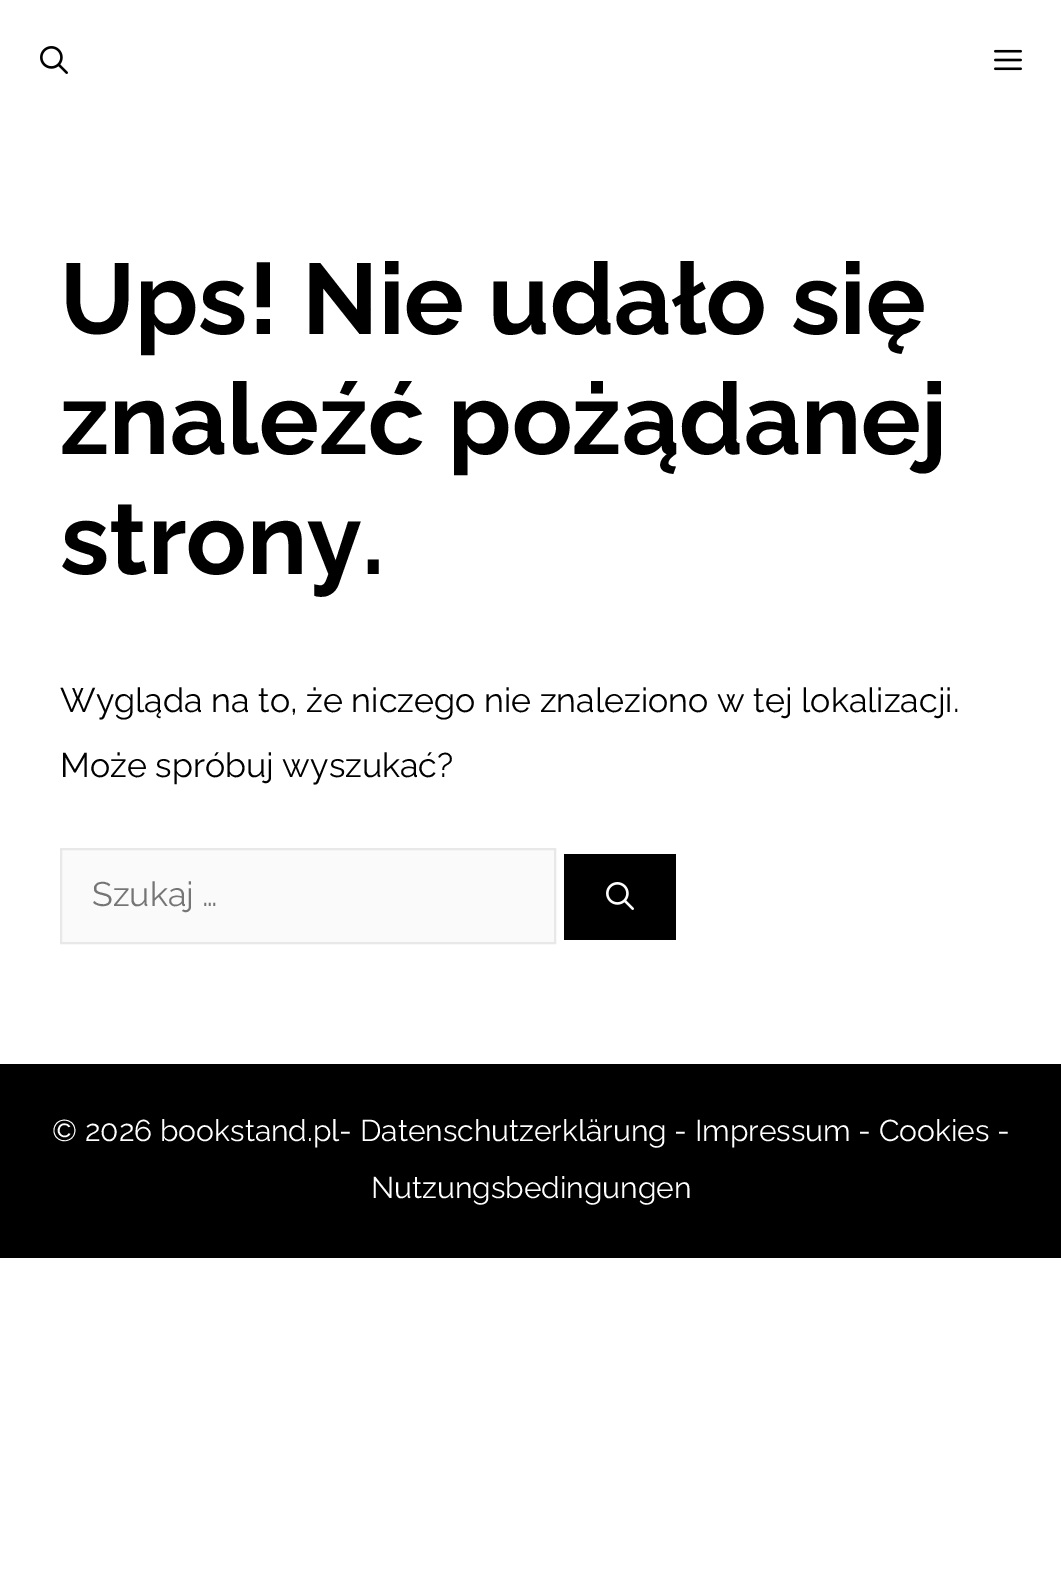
%!PS
<< /PageSize [1061 1582] >> setpagedevice
/mt/moveto load def
/li/lineto load def
/cp/closepath load def
/fl/fill load def
/st/stroke load def
/gs/gsave load def
/gr/grestore load def
/lw/setlinewidth load def
/co { dup -16 bitshift 255 div exch dup -8 bitshift 255 and 255 div exch 255 and 255 div setrgbcolor } def
/fn { [ exch dup neg 0 0 3 -1 roll 0 0 ] selectfont } def
/tx { co fn moveto show } def
/bx { co rectfill } def
/im { 5 dict begin { /h /w /y /x /name } { exch def } forall
  gsave x y translate w h scale
  w h 8 [w 0 0 h 0 0] name (r) file false 3 colorimage grestore end } def
0 1582 translate 1 -1 scale
4 setmiterlimit
0 0 1061 1582 16#FFFFFF bx
(media/1.raw) 40 46 28 28 im
(media/2.raw) 994 49 28 22 im
16#FAFAFA co
61 849 mt 555 849 li 555 943 li 61 943 li cp gs fl gr
16#E8E8E8 co
2 lw
st
564 854 112 86 16#000000 bx
(media/3.raw) 606 882 28 28 im
0 1064 1061 194 16#000000 bx
(Ups! Nie udało się) 60 334 /Raleway-Bold 100 16#000000 tx
(znaleźć pożądanej) 60 454 /Raleway-Bold 100 16#000000 tx
(strony.) 60 574 /Raleway-Bold 100 16#000000 tx
(Wygląda na to, że niczego nie znaleziono w tej lokalizacji.) 60 712 /Raleway-Regular 34 16#000000 tx
(Może spróbuj wyszukać?) 60 777 /Raleway-Regular 34 16#000000 tx
(Szukaj …) 92 906 /Raleway-Regular 34 16#757575 tx
(© 2026 bookstand.pl- Datenschutzerklärung - Impressum - Cookies -) 52 1141 /Raleway-Regular 30 16#FFFFFF tx
(Nutzungsbedingungen) 371 1198 /Raleway-Regular 30 16#FFFFFF tx
showpage
